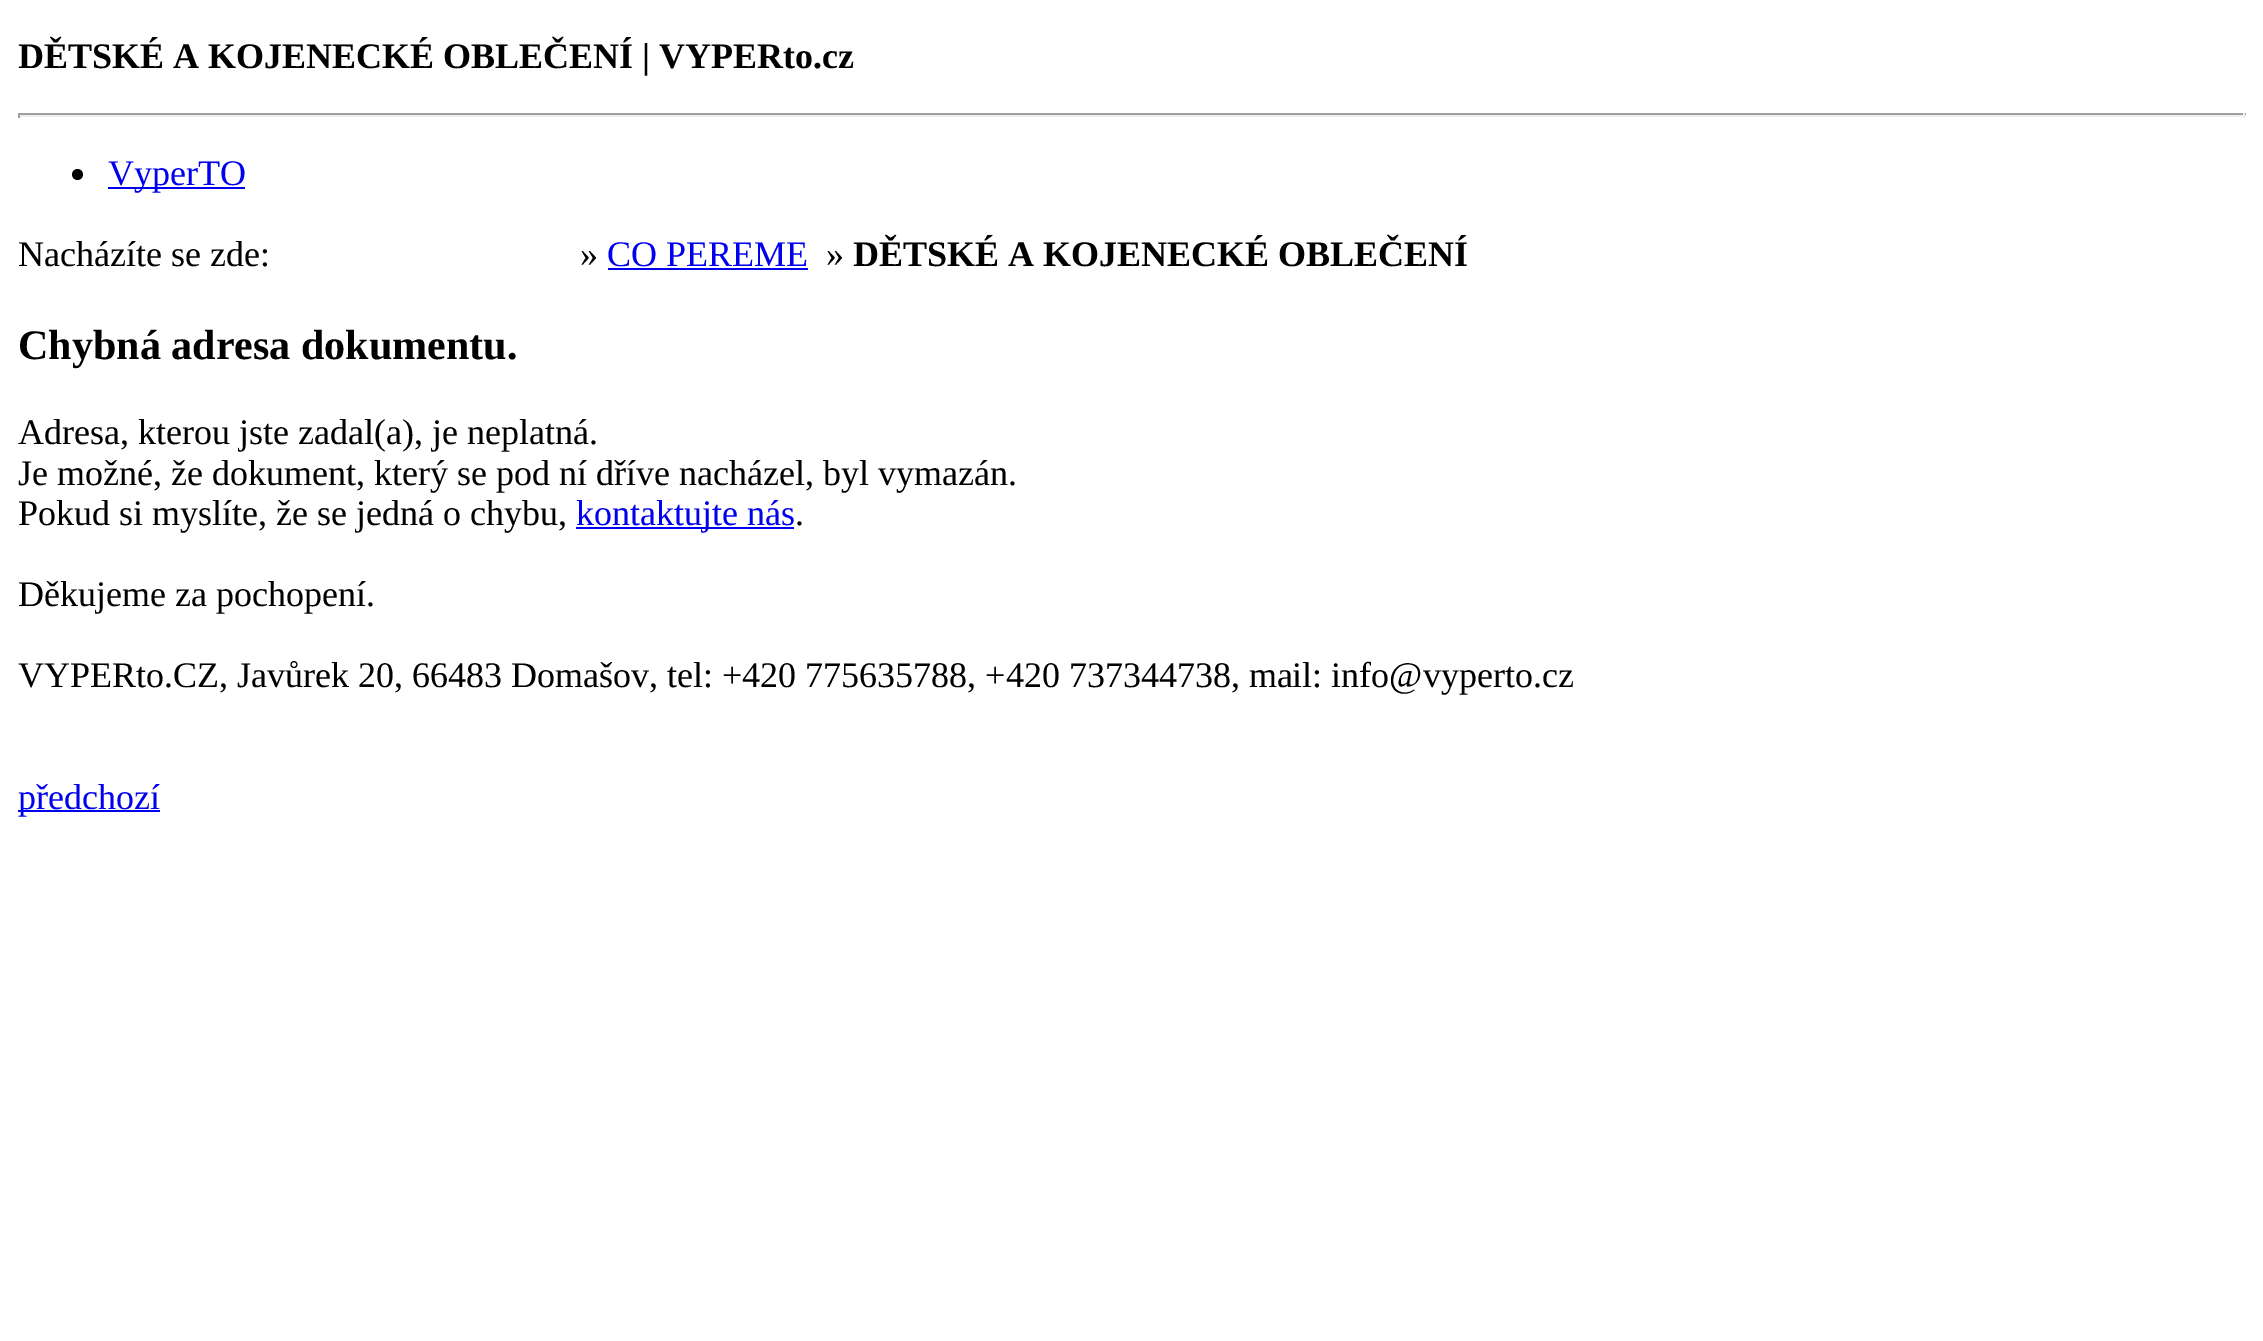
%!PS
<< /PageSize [2263 1341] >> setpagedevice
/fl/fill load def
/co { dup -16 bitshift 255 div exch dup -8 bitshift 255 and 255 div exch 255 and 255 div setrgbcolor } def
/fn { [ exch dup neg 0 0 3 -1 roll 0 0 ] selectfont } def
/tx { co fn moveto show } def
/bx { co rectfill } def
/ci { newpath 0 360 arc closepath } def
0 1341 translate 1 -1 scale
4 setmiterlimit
0 0 2263 1341 16#FFFFFF bx
18 113 2228 2 16#9F9F9F bx
2243 113 2 5 16#EEEEEE bx
18 115 2228 2 16#EEEEEE bx
18 113 2 5 16#9F9F9F bx
16#000000 co
77.5 174.5 5.5 ci fl
108 187 137 2 16#0000EE bx
608 268 200 2 16#0000EE bx
576 527 218 2 16#0000EE bx
18 810 142 2 16#0000EE bx
(DĚTSKÉ A KOJENECKÉ OBLEČENÍ | VYPERto.cz) 18 68 /LiberationSerif-Bold 36 16#000000 tx
(VyperTO) 108 185 /LiberationSerif-Regular 36 16#0000EE tx
(Nacházíte se zde:) 18 266 /LiberationSerif-Regular 36 16#000000 tx
(») 580 266 /LiberationSerif-Regular 36 16#000000 tx
(CO PEREME) 607 266 /LiberationSerif-Regular 36 16#0000EE tx
(») 826 266 /LiberationSerif-Regular 36 16#000000 tx
(DĚTSKÉ A KOJENECKÉ OBLEČENÍ) 853 266 /LiberationSerif-Bold 36 16#000000 tx
(Chybná adresa dokumentu.) 18 359 /LiberationSerif-Bold 42.1 16#000000 tx
(Adresa, kterou jste zadal\(a\), je neplatná.) 18 444 /LiberationSerif-Regular 36 16#000000 tx
(Je možné, že dokument, který se pod ní dříve nacházel, byl vymazán.) 18 485 /LiberationSerif-Regular 36 16#000000 tx
(Pokud si myslíte, že se jedná o chybu,) 18 525 /LiberationSerif-Regular 36 16#000000 tx
(kontaktujte nás) 576 525 /LiberationSerif-Regular 36 16#0000EE tx
(.) 795 525 /LiberationSerif-Regular 36 16#000000 tx
(Děkujeme za pochopení.) 18 606 /LiberationSerif-Regular 36 16#000000 tx
(VYPERto.CZ, Javůrek 20, 66483 Domašov, tel: +420 775635788, +420 737344738, mail: info@vyperto.cz) 18 687 /LiberationSerif-Regular 36 16#000000 tx
(předchozí) 18 809 /LiberationSerif-Regular 36 16#0000EE tx
showpage
